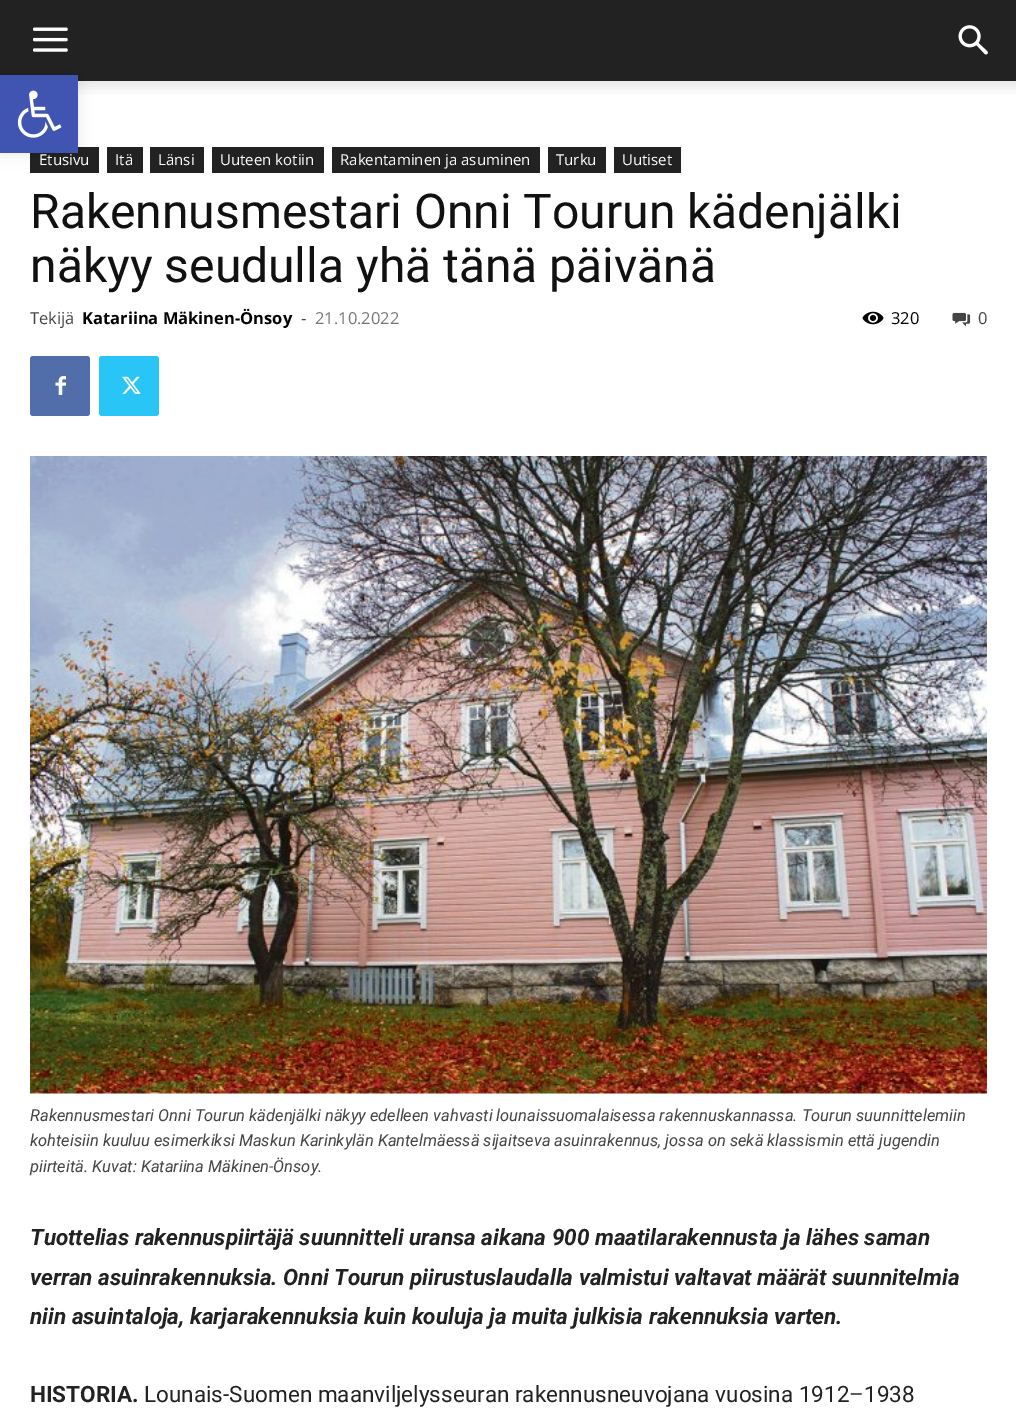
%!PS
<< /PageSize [1016 1422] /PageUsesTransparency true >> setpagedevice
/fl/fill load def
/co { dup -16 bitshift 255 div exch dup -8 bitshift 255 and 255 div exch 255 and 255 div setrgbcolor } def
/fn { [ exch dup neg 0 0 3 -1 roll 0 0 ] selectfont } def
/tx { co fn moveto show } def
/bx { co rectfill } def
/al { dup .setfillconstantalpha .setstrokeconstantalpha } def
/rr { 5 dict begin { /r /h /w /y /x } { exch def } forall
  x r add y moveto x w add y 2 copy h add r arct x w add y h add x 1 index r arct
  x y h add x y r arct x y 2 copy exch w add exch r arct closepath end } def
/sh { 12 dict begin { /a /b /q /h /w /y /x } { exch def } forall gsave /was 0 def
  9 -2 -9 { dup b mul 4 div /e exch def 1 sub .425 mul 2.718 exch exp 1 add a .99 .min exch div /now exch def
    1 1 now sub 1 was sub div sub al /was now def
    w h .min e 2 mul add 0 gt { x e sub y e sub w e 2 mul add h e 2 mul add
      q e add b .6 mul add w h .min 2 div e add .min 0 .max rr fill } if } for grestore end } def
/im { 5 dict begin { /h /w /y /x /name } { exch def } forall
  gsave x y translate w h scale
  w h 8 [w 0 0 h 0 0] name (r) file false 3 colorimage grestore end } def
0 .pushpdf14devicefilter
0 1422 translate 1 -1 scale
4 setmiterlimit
0 0 1016 1422 16#FFFFFF bx
0 0 1016 81 16#222222 bx
(media/2.raw) 33 27 35 25 im
(media/4.raw) 78 81 938 13 im
30 147 69 26 16#222222 bx
16#000000 co
0 75 78 78 0 7.5 .1 sh
0 75 78 78 16#4054B2 bx
(media/1.raw) 17 90 45 48 im
(media/3.raw) 958 25 30 30 im
107 147 36 26 16#222222 bx
150 147 54 26 16#222222 bx
212 147 112 26 16#222222 bx
332 147 208 26 16#222222 bx
548 147 58 26 16#222222 bx
614 147 67 26 16#222222 bx
(media/5.raw) 862 311 22 14 im
(media/6.raw) 952 312 19 15 im
16#516EAB co
30 356 60 60 3 rr fl
(media/7.raw) 55 376 11 19 im
16#29C5F6 co
99 356 60 60 3 rr fl
(media/8.raw) 122 376 19 18 im
(media/9.raw) 30 456 957 638 im
(Etusivu) 39 165 /OpenSans-Regular 15 16#FFFFFF tx
(Itä) 115 165 /OpenSans-Regular 15 16#FFFFFF tx
(Länsi) 158 165 /OpenSans-Regular 15 16#FFFFFF tx
(Uuteen kotiin) 220 165 /OpenSans-Regular 15 16#FFFFFF tx
(Rakentaminen ja asuminen) 340 165 /OpenSans-Regular 15 16#FFFFFF tx
(Turku) 556 165 /OpenSans-Regular 15 16#FFFFFF tx
(Uutiset) 622 165 /OpenSans-Regular 15 16#FFFFFF tx
(Rakennusmestari Onni Tourun kädenjälki) 30 228 /Roboto-Regular 48 16#111111 tx
(näkyy seudulla yhä tänä päivänä) 30 282 /Roboto-Regular 48 16#111111 tx
(Tekijä) 30 324 /OpenSans-Regular 16.5 16#444444 tx
(Katariina Mäkinen-Önsoy) 82 324 /OpenSans-Bold 16.5 16#000000 tx
(-) 301 324 /OpenSans-Regular 16.5 16#444444 tx
(21.10.2022) 315 324 /OpenSans-Regular 16.5 16#767676 tx
(320) 891 324 /OpenSans-Regular 16.5 16#000000 tx
(0) 978 324 /OpenSans-Regular 16.5 16#444444 tx
(Rakennusmestari Onni Tourun kädenjälki näkyy edelleen vahvasti lounaissuomalaisessa rakennuskannassa. Tourun suunnittelemiin) 30 1121 /Roboto-Italic 16.5 16#444444 tx
(kohteisiin kuuluu esimerkiksi Maskun Karinkylän Kantelmäessä sijaitseva asuinrakennus, jossa on sekä klassismin että jugendin) 30 1146 /Roboto-Italic 16.5 16#444444 tx
(piirteitä. Kuvat: Katariina Mäkinen-Önsoy.) 30 1172 /Roboto-Italic 16.5 16#444444 tx
(Tuottelias rakennuspiirtäjä suunnitteli uransa aikana 900 maatilarakennusta ja lähes saman) 30 1245 /Roboto-BoldItalic 22.5 16#222222 tx
(verran asuinrakennuksia. Onni Tourun piirustuslaudalla valmistui valtavat määrät suunnitelmia) 30 1285 /Roboto-BoldItalic 22.5 16#222222 tx
(niin asuintaloja, karjarakennuksia kuin kouluja ja muita julkisia rakennuksia varten.) 30 1324 /Roboto-BoldItalic 22.5 16#222222 tx
(HISTORIA.) 30 1402 /Roboto-Bold 22.5 16#222222 tx
(Lounais-Suomen maanviljelysseuran rakennusneuvojana vuosina 1912–1938) 144 1402 /Roboto-Regular 22.5 16#222222 tx
.poppdf14devicefilter showpage
